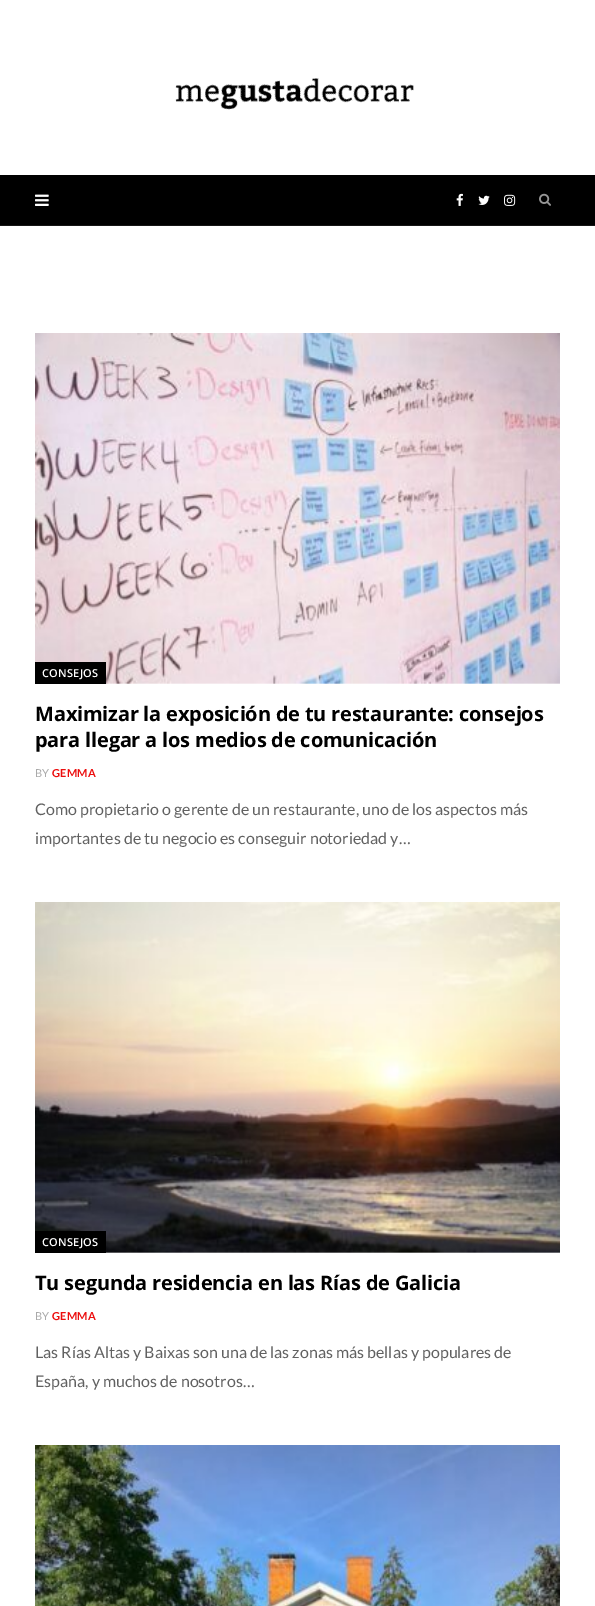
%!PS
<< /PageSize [595 1606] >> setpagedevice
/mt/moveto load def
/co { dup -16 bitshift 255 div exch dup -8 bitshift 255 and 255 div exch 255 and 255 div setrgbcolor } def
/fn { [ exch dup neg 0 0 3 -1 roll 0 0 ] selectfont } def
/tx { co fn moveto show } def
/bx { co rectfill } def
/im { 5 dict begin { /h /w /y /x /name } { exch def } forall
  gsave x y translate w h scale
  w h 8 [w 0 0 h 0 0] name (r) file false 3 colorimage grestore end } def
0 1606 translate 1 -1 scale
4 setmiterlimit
0 0 595 1606 16#FFFFFF bx
(media/1.raw) 175 78 239 32 im
0 175 595 50 16#000000 bx
0 225 595 1 16#161616 bx
(media/2.raw) 35 194 14 12 im
(media/3.raw) 456 193 7 13 im
(media/4.raw) 478 195 12 10 im
(media/5.raw) 504 194 12 12 im
(media/6.raw) 539 193 12 13 im
(media/7.raw) 35 333 525 351 im
35 662 71 22 16#000000 bx
(media/8.raw) 35 902 525 351 im
35 1231 71 22 16#000000 bx
(media/9.raw) 35 1445 525 161 im
/OpenSans-SemiBold 11 fn
16#FFFFFF co
42 677 mt .25 0 (CONSEJOS) ashow
/OpenSans-Bold 20 fn
16#000000 co
35 721 mt -.2 0 (Maximizar la exposición de tu restaurante: consejos) ashow
35 747 mt -.2 0 (para llegar a los medios de comunicación) ashow
/Lato-Regular 11 fn
16#AAAAAA co
35 777 mt .25 0 (BY) ashow
/Lato-Bold 11 fn
16#EC0E0E co
52 777 mt .25 0 (GEMMA) ashow
(Como propietario o gerente de un restaurante, uno de los aspectos más) 35 815 /Lato-Regular 16 16#616161 tx
(importantes de tu negocio es conseguir notoriedad y…) 35 844 /Lato-Regular 16 16#616161 tx
/OpenSans-SemiBold 11 fn
16#FFFFFF co
42 1246 mt .25 0 (CONSEJOS) ashow
/OpenSans-Bold 20 fn
16#000000 co
35 1290 mt -.2 0 (Tu segunda residencia en las Rías de Galicia) ashow
/Lato-Regular 11 fn
16#AAAAAA co
35 1320 mt .25 0 (BY) ashow
/Lato-Bold 11 fn
16#EC0E0E co
52 1320 mt .25 0 (GEMMA) ashow
(Las Rías Altas y Baixas son una de las zonas más bellas y populares de) 35 1358 /Lato-Regular 16 16#616161 tx
(España, y muchos de nosotros…) 35 1387 /Lato-Regular 16 16#616161 tx
showpage
